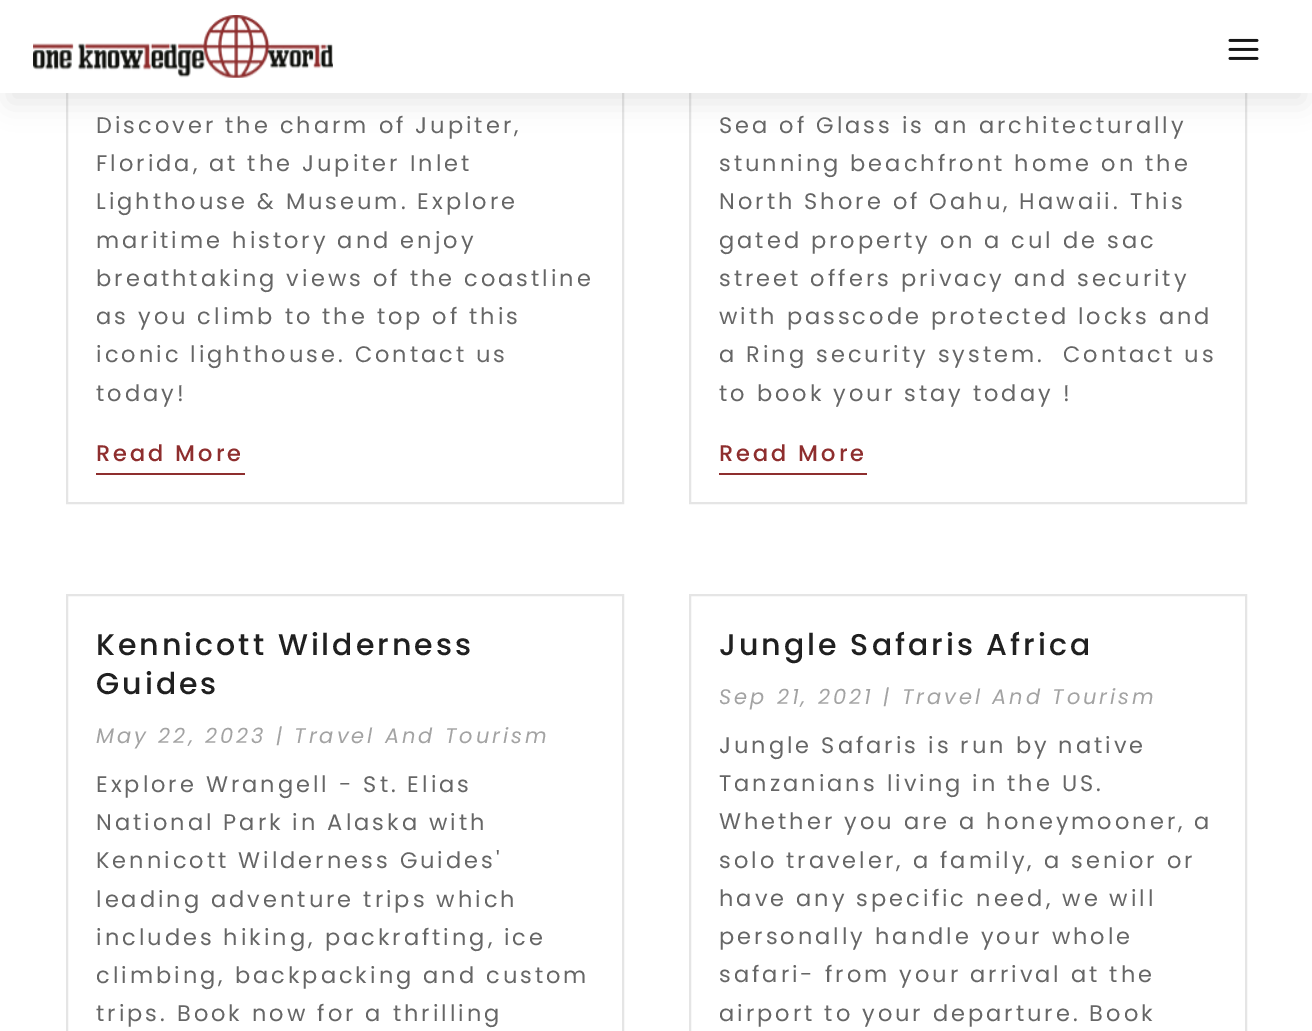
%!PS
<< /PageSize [1312 1031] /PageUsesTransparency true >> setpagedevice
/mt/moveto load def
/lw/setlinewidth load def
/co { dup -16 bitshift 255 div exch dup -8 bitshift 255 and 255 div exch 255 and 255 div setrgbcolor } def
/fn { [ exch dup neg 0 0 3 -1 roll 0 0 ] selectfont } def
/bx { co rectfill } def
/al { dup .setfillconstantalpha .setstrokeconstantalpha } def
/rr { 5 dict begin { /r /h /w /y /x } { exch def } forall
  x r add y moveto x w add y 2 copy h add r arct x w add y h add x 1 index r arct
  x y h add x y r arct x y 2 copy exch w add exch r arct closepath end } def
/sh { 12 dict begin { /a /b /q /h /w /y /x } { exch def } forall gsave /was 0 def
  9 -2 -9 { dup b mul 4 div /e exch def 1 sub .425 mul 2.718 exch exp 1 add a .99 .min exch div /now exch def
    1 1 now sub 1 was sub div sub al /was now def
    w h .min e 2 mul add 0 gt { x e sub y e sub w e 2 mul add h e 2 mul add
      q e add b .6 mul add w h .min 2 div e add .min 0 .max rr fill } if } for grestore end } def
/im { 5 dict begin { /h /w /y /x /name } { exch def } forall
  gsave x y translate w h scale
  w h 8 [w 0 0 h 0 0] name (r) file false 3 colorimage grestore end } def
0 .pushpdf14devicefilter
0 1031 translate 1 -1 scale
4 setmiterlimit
0 0 1312 1031 16#FFFFFF bx
16#E5E5E5 co
2 lw
67 -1 556 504 rectstroke
690 -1 556 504 rectstroke
16#000000 co
9 27 1295 75 0 13.5 .1 sh
0 0 1312 93 16#FFFFFF bx
(media/1.raw) 33 15 300 63 im
(media/2.raw) 1228 38 31 22 im
96 473 149 2 16#8E2E2E bx
16#E5E5E5 co
67 595 556 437 rectstroke
719 473 148 2 16#8E2E2E bx
16#E5E5E5 co
690 595 556 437 rectstroke
/Poppins-Regular 22.5 fn
16#666666 co
96 133 mt 3 0 (Discover the charm of Jupiter,) ashow
96 171 mt 3 0 (Florida, at the Jupiter Inlet) ashow
96 209 mt 3 0 (Lighthouse & Museum. Explore) ashow
96 248 mt 3 0 (maritime history and enjoy) ashow
96 286 mt 3 0 (breathtaking views of the coastline) ashow
96 324 mt 3 0 (as you climb to the top of this) ashow
96 362 mt 3 0 (iconic lighthouse. Contact us) ashow
96 401 mt 3 0 (today!) ashow
/Poppins-Medium 22.5 fn
16#8E2E2E co
96 461 mt 3 0 (Read More) ashow
/Poppins-Medium 30 fn
16#202020 co
96 655 mt 3 0 (Kennicott Wilderness) ashow
96 694 mt 3 0 (Guides) ashow
/Poppins-Italic 21 fn
16#A3A3A3 co
96 743 mt 3 0 (May 22, 2023 | Travel And Tourism) ashow
/Poppins-Regular 22.5 fn
16#666666 co
96 792 mt 3 0 (Explore Wrangell - St. Elias) ashow
96 830 mt 3 0 (National Park in Alaska with) ashow
96 868 mt 3 0 (Kennicott Wilderness Guides') ashow
96 907 mt 3 0 (leading adventure trips which) ashow
96 945 mt 3 0 (includes hiking, packrafting, ice) ashow
96 983 mt 3 0 (climbing, backpacking and custom) ashow
96 1021 mt 3 0 (trips. Book now for a thrilling) ashow
719 133 mt 3 0 (Sea of Glass is an architecturally) ashow
719 171 mt 3 0 (stunning beachfront home on the) ashow
719 209 mt 3 0 (North Shore of Oahu, Hawaii. This) ashow
719 248 mt 3 0 (gated property on a cul de sac) ashow
719 286 mt 3 0 (street offers privacy and security) ashow
719 324 mt 3 0 (with passcode protected locks and) ashow
719 362 mt 3 0 (a Ring security system.  Contact us) ashow
719 401 mt 3 0 (to book your stay today !) ashow
/Poppins-Medium 22.5 fn
16#8E2E2E co
719 461 mt 3 0 (Read More) ashow
/Poppins-Medium 30 fn
16#202020 co
719 655 mt 3 0 (Jungle Safaris Africa) ashow
/Poppins-Italic 21 fn
16#A3A3A3 co
719 704 mt 3 0 (Sep 21, 2021 | Travel And Tourism) ashow
/Poppins-Regular 22.5 fn
16#666666 co
719 753 mt 3 0 (Jungle Safaris is run by native) ashow
719 791 mt 3 0 (Tanzanians living in the US.) ashow
719 829 mt 3 0 (Whether you are a honeymooner, a) ashow
719 868 mt 3 0 (solo traveler, a family, a senior or) ashow
719 906 mt 3 0 (have any specific need, we will) ashow
719 944 mt 3 0 (personally handle your whole) ashow
719 982 mt 3 0 (safari- from your arrival at the) ashow
719 1021 mt 3 0 (airport to your departure. Book) ashow
.poppdf14devicefilter showpage
